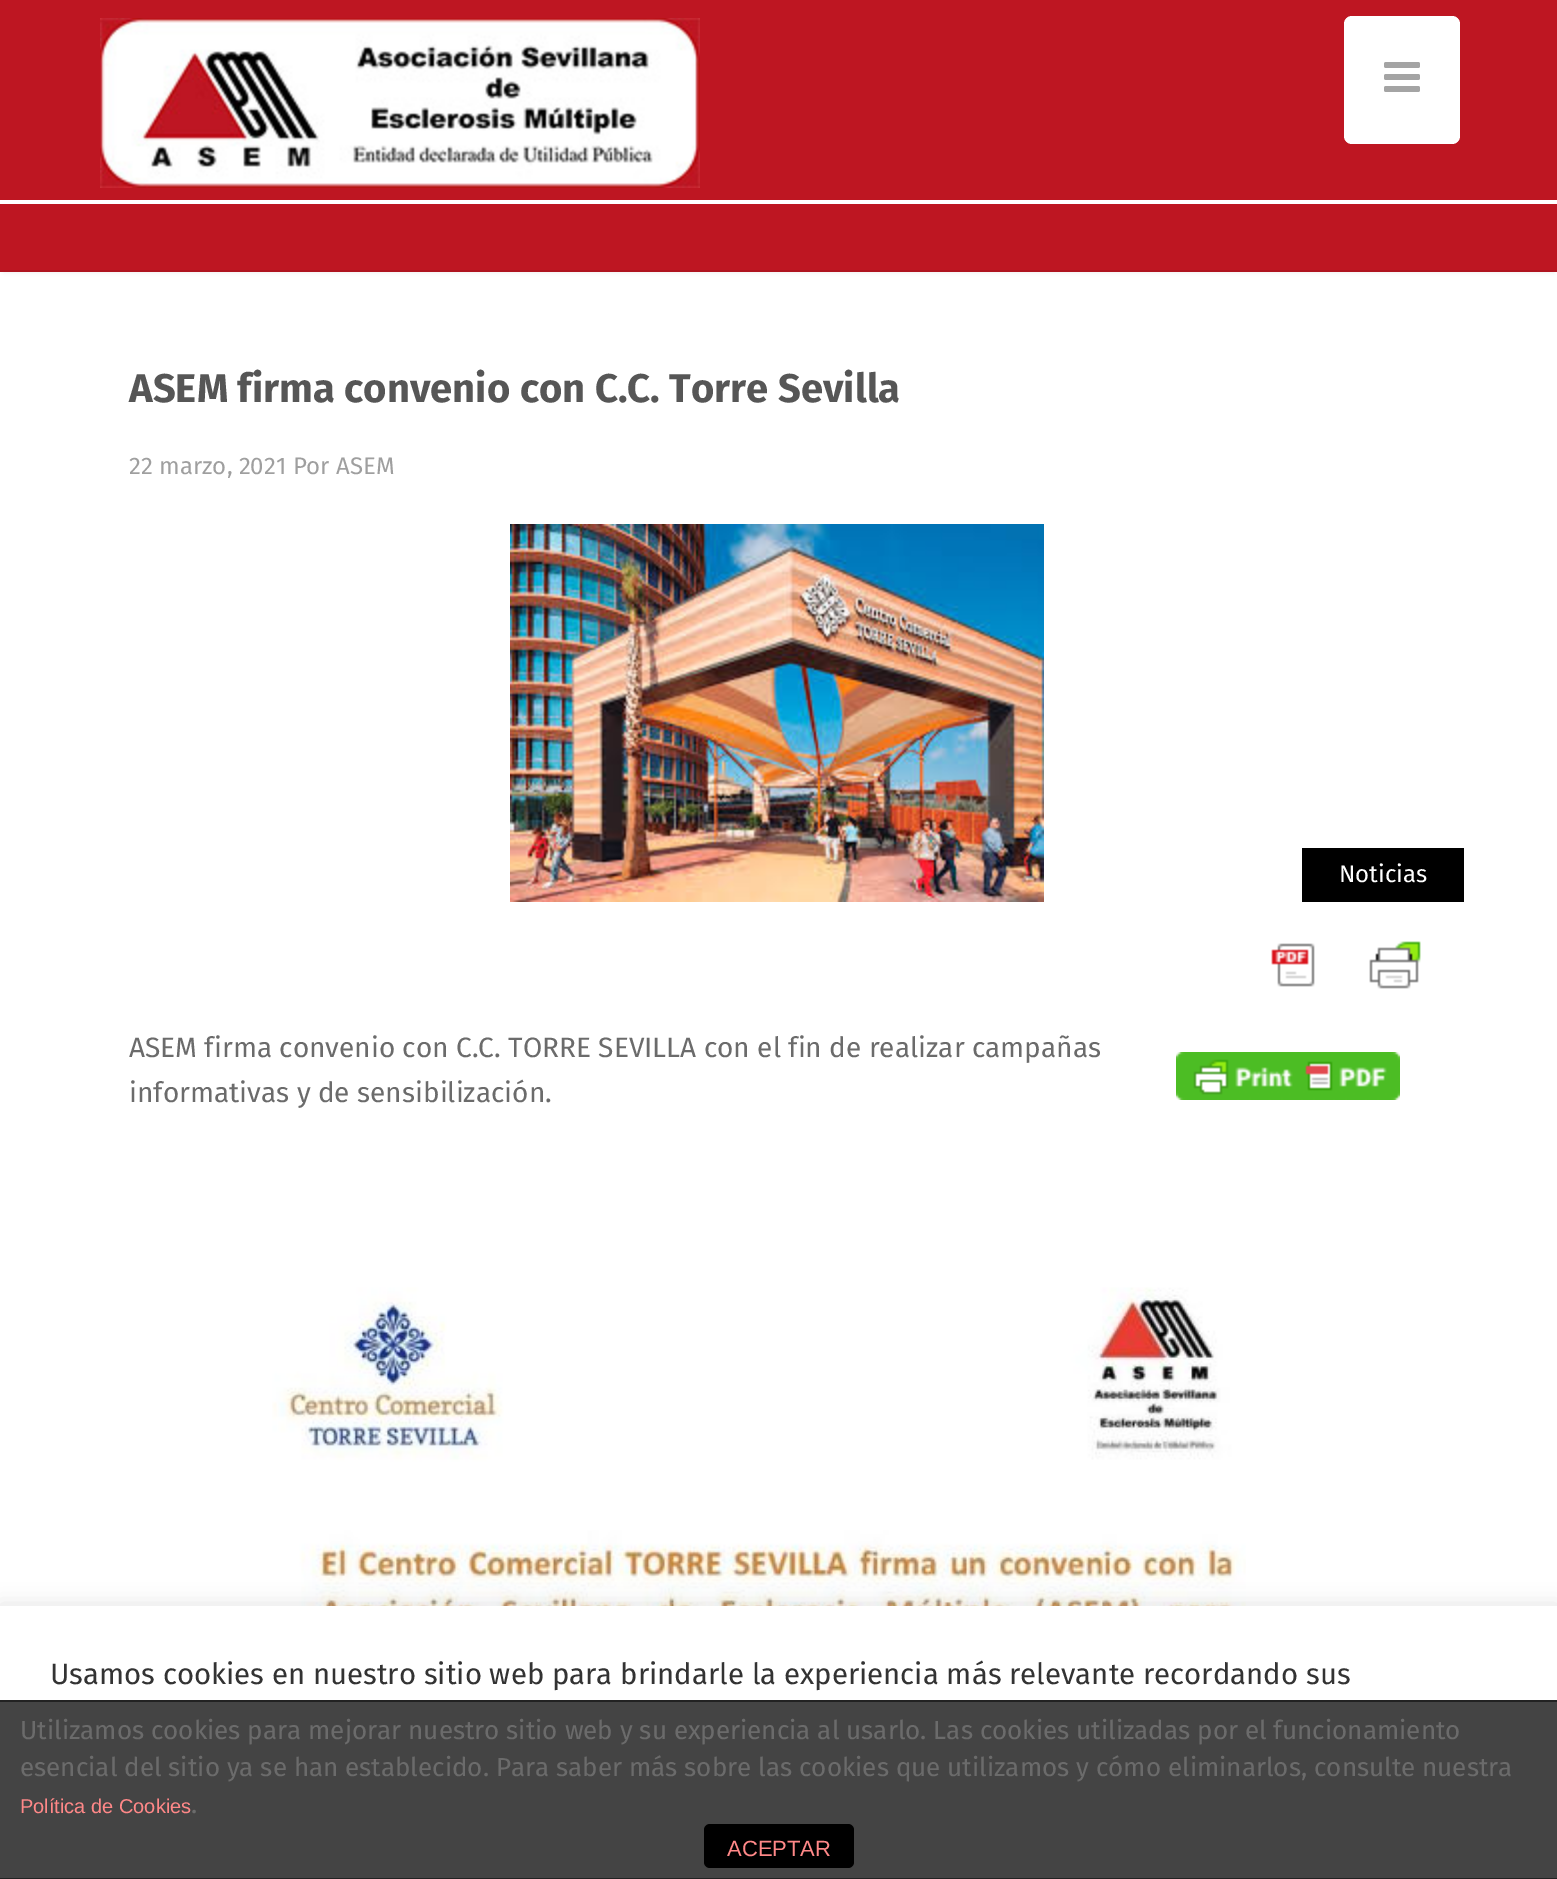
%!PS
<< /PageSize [1557 1879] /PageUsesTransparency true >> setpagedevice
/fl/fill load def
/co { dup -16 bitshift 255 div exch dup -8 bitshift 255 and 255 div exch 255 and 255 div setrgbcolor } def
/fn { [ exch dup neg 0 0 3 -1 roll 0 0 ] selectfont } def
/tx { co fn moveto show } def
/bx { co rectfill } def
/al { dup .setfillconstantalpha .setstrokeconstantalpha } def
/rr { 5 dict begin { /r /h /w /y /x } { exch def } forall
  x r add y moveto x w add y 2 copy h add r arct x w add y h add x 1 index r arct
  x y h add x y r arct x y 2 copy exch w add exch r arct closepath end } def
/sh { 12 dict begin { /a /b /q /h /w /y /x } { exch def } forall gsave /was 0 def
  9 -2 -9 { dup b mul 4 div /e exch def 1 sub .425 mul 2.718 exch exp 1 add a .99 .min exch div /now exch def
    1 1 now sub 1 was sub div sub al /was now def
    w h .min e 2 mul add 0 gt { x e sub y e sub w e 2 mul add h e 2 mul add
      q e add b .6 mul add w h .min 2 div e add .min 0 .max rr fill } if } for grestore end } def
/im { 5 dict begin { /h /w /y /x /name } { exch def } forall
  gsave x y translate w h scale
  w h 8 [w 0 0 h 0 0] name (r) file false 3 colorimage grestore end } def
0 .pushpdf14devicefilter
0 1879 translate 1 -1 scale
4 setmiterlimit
0 0 1557 1879 16#FFFFFF bx
16#000000 co
4 8 1550 264 0 2 .08 sh
0 0 1557 270 16#BE1622 bx
0 270 1557 2 16#AF141F bx
(media/1.raw) 100 18 600 170 im
16#FFFFFF co
1344 16 116 128 8 rr fl
(media/2.raw) 1384 62 36 30 im
0 200 1557 4 16#FFFFFF bx
(media/3.raw) 510 524 534 378 im
1302 848 162 54 16#000000 bx
(media/4.raw) 1271 943 44 44 im
(media/5.raw) 1369 941 52 48 im
(media/6.raw) 1176 1052 224 48 im
(media/7.raw) 272 1287 974 319 im
16#ACABAB co
0 1604 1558 274 0 10 .3 sh
0 1606 1557 94 16#FFFFFF bx
0 1702 1557 176 16#444444 bx
0 1700 1557 2 16#222222 bx
0 1878 1557 1 16#222222 bx
16#000000 co
704 1824 150 44 6 rr fl
(ASEM firma convenio con C.C. Torre Sevilla) 129 402 /FiraSans-Bold 40 16#565656 tx
(22 marzo, 2021 Por ASEM) 129 474 /FiraSans-Regular 24 16#9F9F9F tx
(Noticias) 1339 882 /FiraSans-Regular 24 16#FFFFFF tx
(ASEM firma convenio con C.C. TORRE SEVILLA con el fin de realizar campañas) 129 1057 /FiraSans-Regular 28 16#6B6B6B tx
(informativas y de sensibilización.) 129 1102 /FiraSans-Regular 28 16#6B6B6B tx
(Usamos cookies en nuestro sitio web para brindarle la experiencia más relevante recordando sus) 50 1684 /FiraSans-Regular 29.35 16#333333 tx
(Utilizamos cookies para mejorar nuestro sitio web y su experiencia al usarlo. Las cookies utilizadas por el funcionamiento) 20 1739 /FiraSans-Regular 26 16#6B6B6B tx
(esencial del sitio ya se han establecido. Para saber más sobre las cookies que utilizamos y cómo eliminarlos, consulte nuestra) 20 1776 /FiraSans-Regular 26 16#6B6B6B tx
(Política de Cookies) 20 1813 /LiberationSans-Regular 20 16#FF8888 tx
(.) 191 1813 /FiraSans-Regular 26 16#6B6B6B tx
(ACEPTAR) 727 1856 /LiberationSans-Regular 22 16#FF8888 tx
.poppdf14devicefilter showpage
